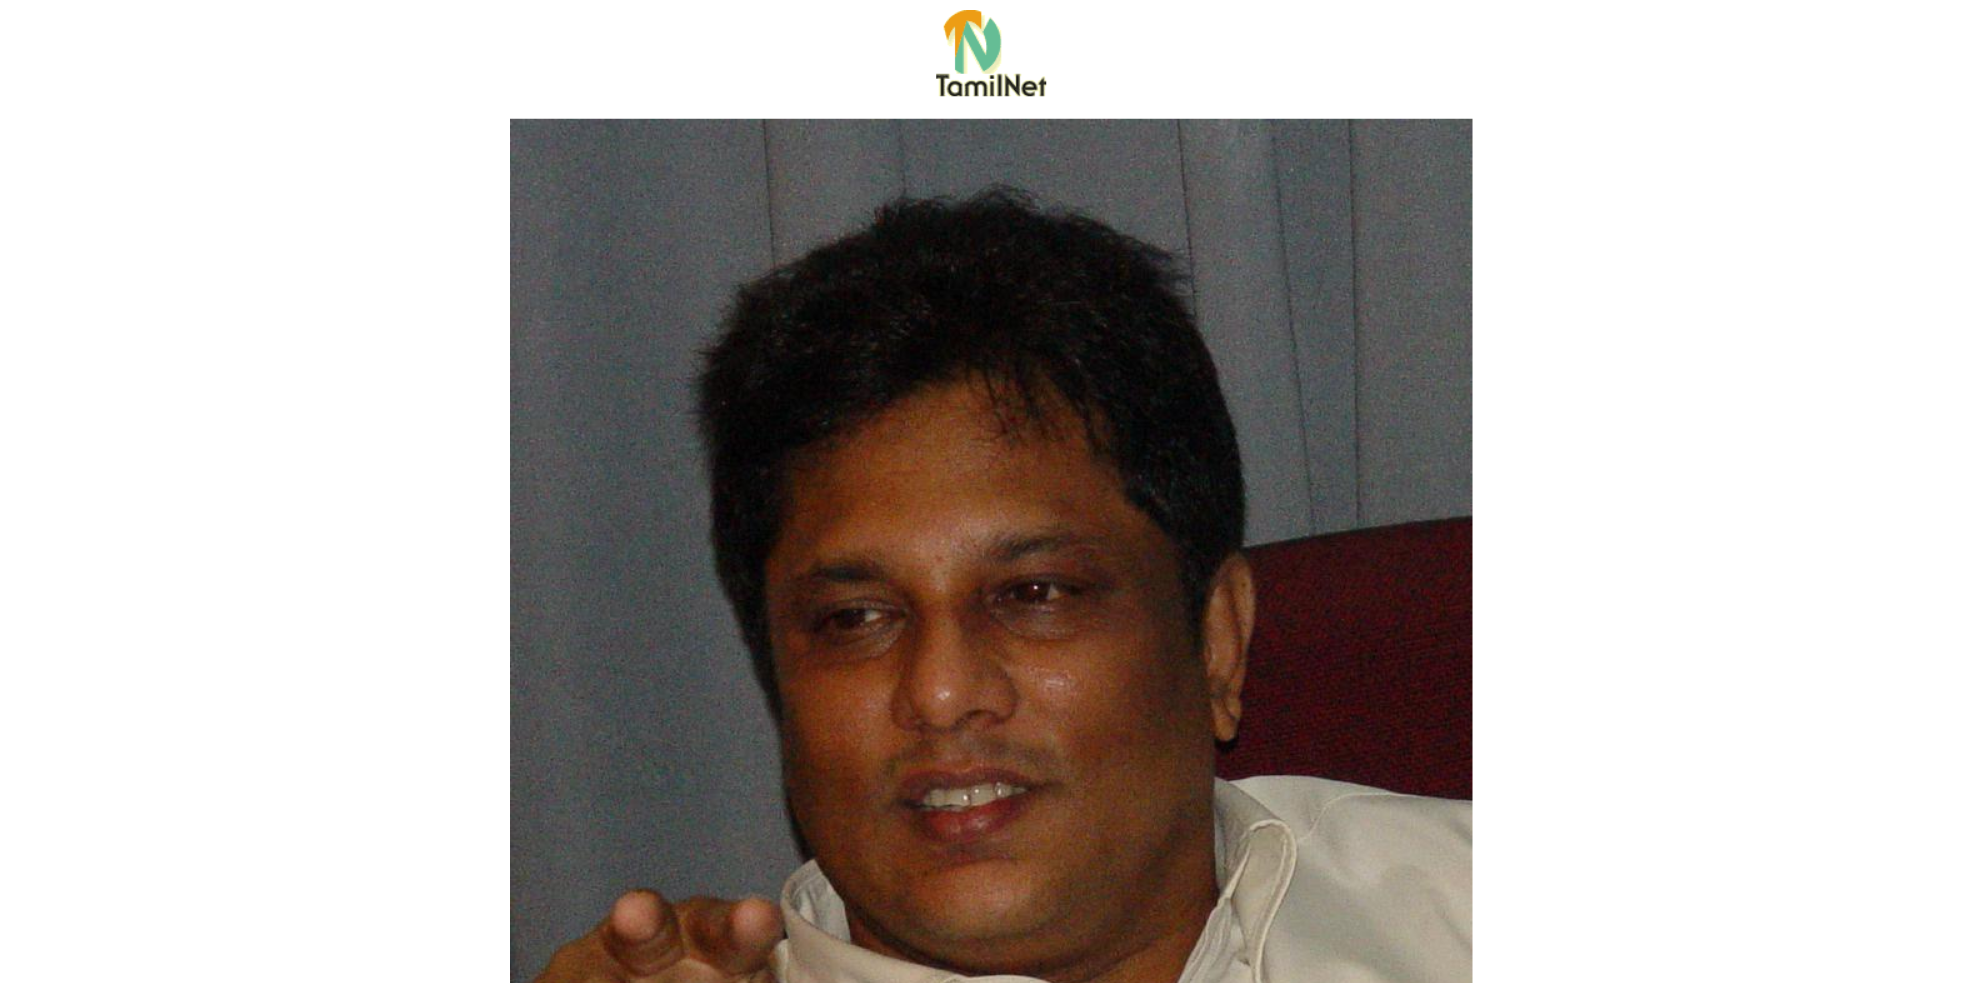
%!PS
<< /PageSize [1982 983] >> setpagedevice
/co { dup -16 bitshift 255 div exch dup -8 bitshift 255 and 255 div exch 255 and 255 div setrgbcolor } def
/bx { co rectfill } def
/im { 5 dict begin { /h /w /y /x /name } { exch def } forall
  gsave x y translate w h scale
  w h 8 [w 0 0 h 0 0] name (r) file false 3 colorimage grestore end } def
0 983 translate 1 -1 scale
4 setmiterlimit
0 0 1982 983 16#FFFFFF bx
(media/1.raw) 936 10 111 87 im
(media/2.raw) 510 118 963 865 im
showpage
